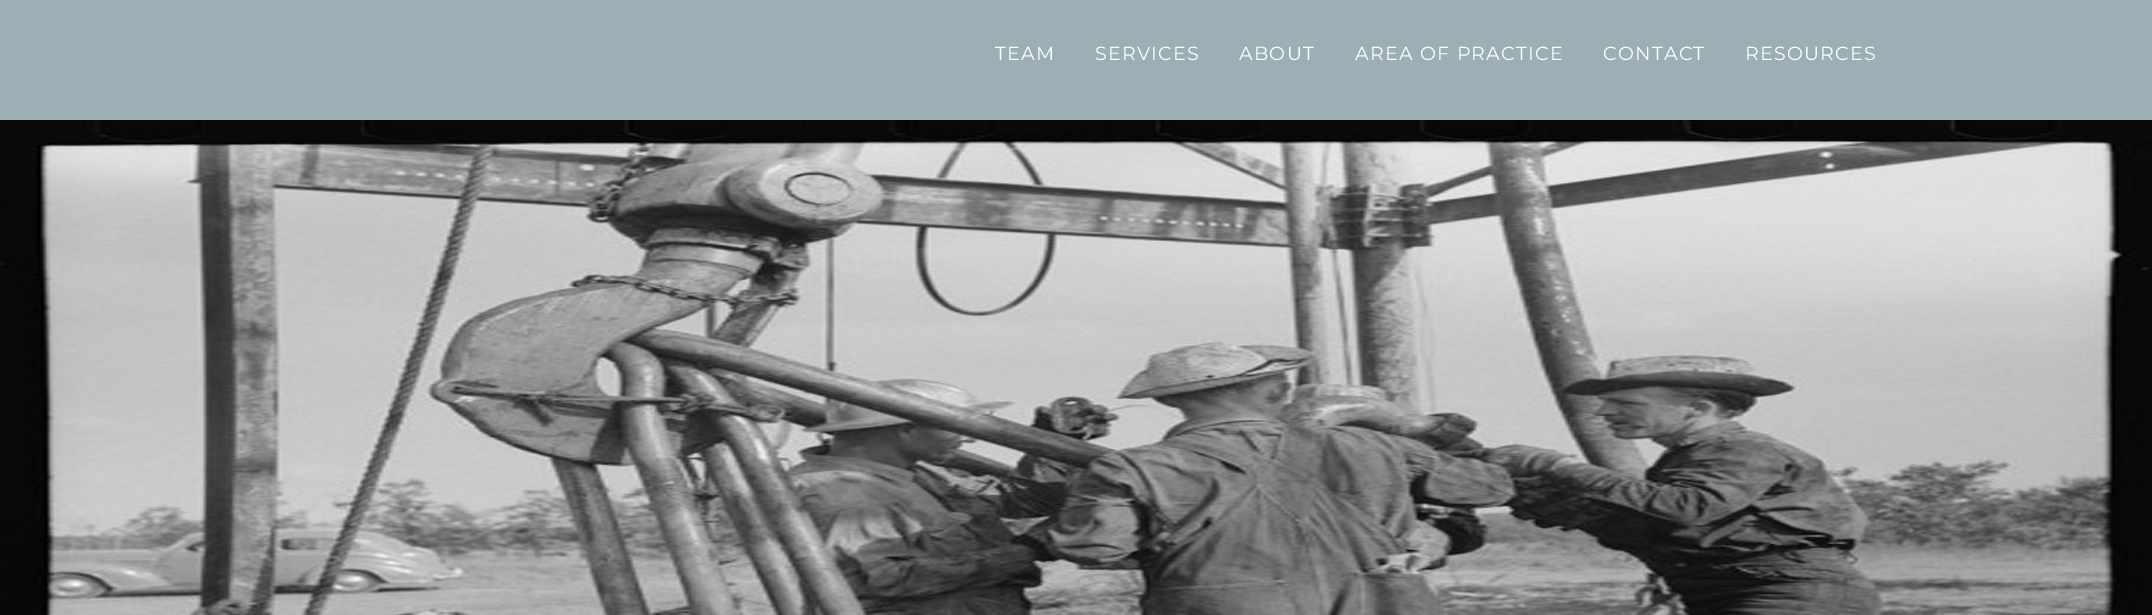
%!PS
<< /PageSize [2152 615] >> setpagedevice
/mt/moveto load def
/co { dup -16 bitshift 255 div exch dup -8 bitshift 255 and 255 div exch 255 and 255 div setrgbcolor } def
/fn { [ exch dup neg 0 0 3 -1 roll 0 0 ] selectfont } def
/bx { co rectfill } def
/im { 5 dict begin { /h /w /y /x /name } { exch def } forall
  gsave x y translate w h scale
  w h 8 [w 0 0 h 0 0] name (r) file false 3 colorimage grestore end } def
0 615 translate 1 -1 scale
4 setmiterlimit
0 0 2152 615 16#9BAFB5 bx
(media/1.raw) 0 120 2152 495 im
/Montserrat-Regular 19 fn
16#FFFFFF co
995 60 mt 1.25 0 (TEAM) ashow
1095 60 mt 1.25 0 (SERVICES) ashow
1239 60 mt 1.25 0 (ABOUT) ashow
1355 60 mt 1.25 0 (AREA OF PRACTICE) ashow
1603 60 mt 1.25 0 (CONTACT) ashow
1745 60 mt 1.25 0 (RESOURCES) ashow
showpage
